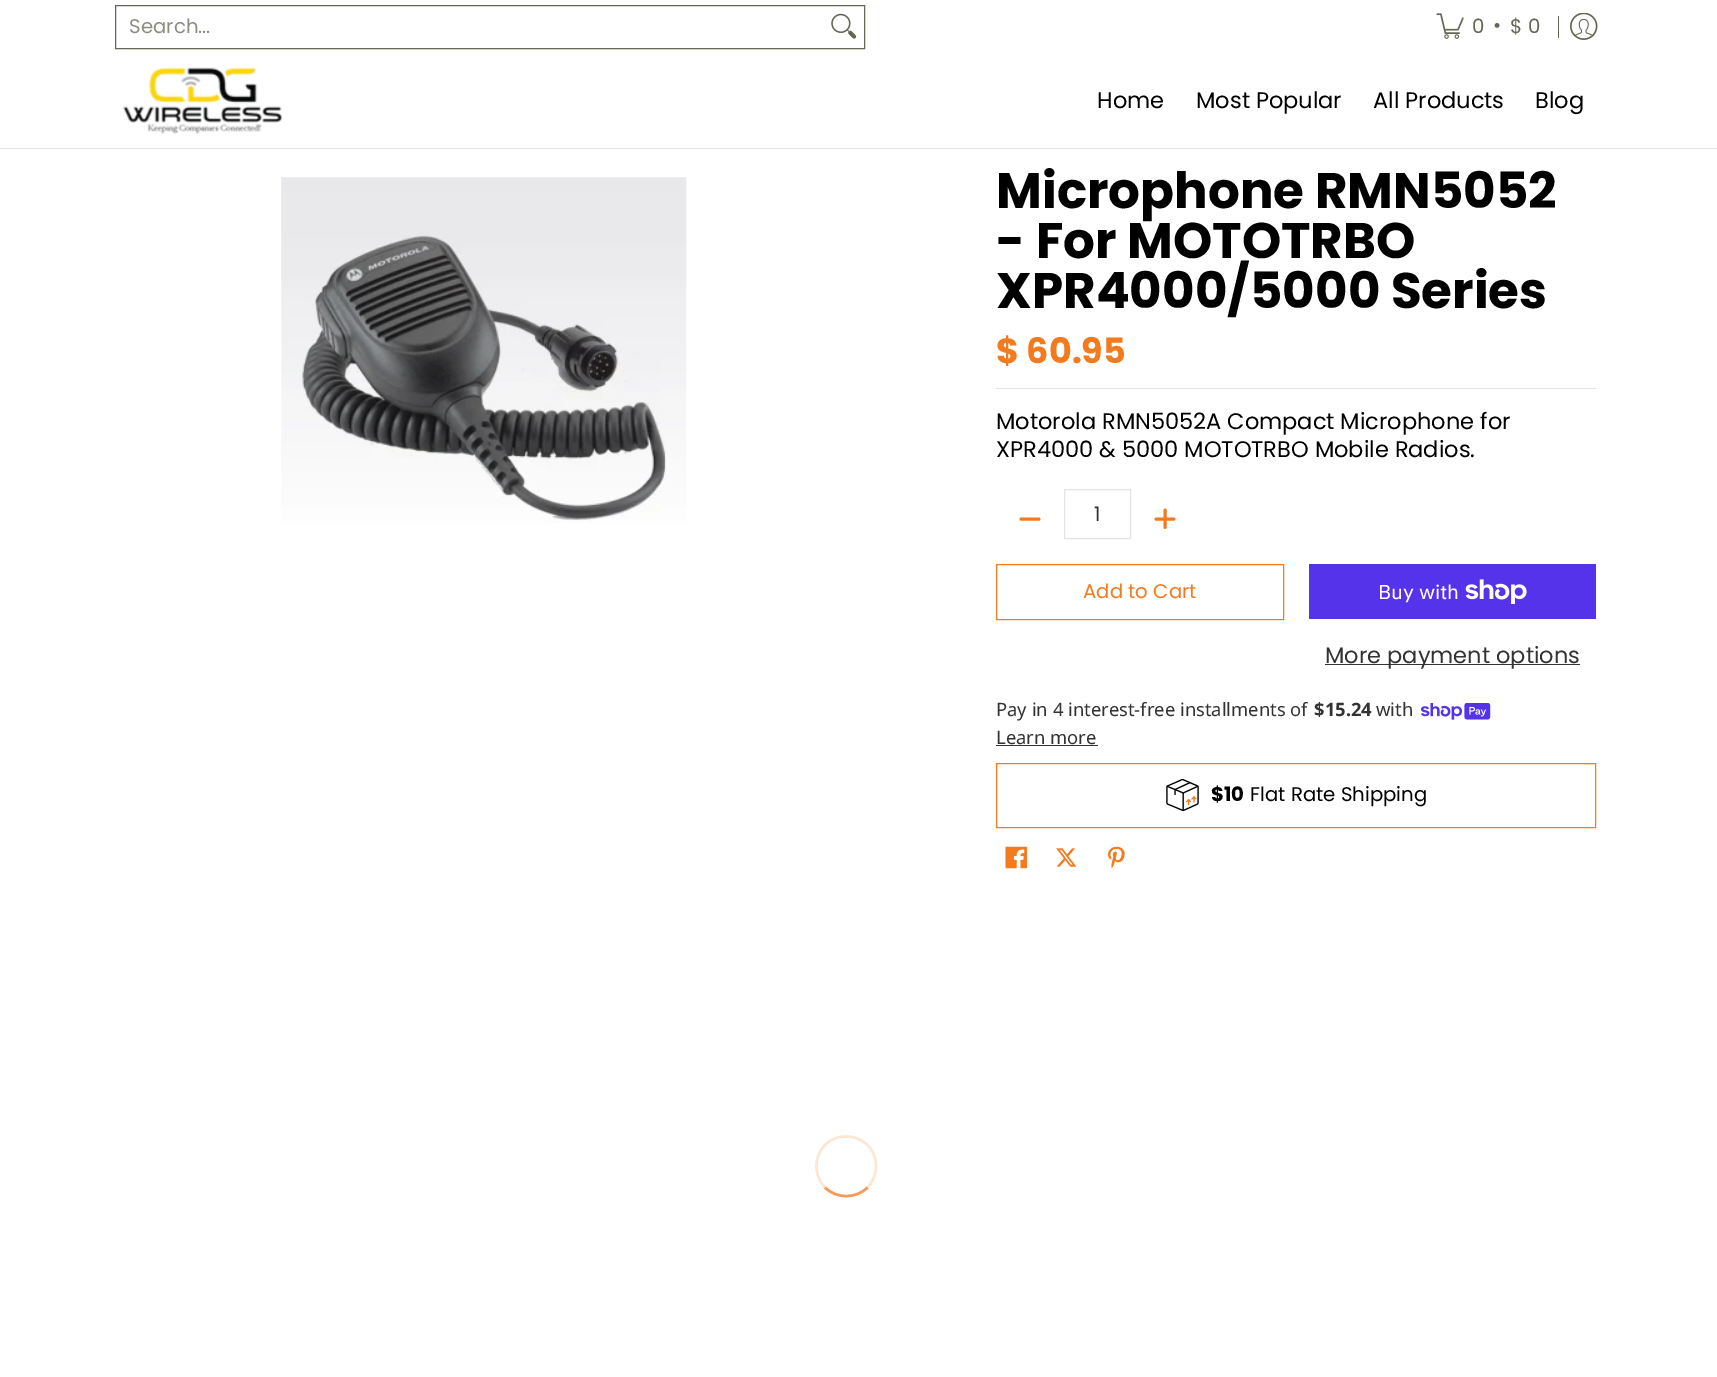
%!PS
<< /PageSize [1717 1377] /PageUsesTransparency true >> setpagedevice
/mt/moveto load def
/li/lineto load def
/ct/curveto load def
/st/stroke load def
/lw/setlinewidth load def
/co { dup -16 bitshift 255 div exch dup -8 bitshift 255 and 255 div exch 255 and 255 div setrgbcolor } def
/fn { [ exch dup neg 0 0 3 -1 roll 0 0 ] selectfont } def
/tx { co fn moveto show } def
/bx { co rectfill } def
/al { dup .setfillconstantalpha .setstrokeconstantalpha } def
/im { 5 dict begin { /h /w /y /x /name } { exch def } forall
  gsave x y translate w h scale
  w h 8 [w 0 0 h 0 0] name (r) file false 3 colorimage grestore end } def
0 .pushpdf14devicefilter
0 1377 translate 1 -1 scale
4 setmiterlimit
0 0 1717 1377 16#FFFFFF bx
16#666655 co
115.5 5.5 749 43 rectstroke
(media/1.raw) 831 13 26 26 im
(media/2.raw) 1436 13 28 26 im
1558 16 1 22 16#666655 bx
(media/3.raw) 1570 13 28 27 im
0 148 1717 1 16#E4E4E4 bx
(media/4.raw) 123 67 160 67 im
(media/5.raw) 281 177 406 346 im
996 388 600 1 16#E4E4E4 bx
16#F37A1F co
2.9 lw
1 setlinecap
1 setlinejoin
1039 519 mt 1021 519 li st
16#E4E4E4 co
1 lw
0 setlinecap
0 setlinejoin
1064.5 489.5 66 49 rectstroke
16#F37A1F co
2.9 lw
1 setlinecap
1 setlinejoin
1165 510 mt 1165 527.5 li 1174 519 mt 1156 519 li st
1 lw
0 setlinecap
0 setlinejoin
996.5 564.5 287 55 rectstroke
1309 564 287 55 16#5433EB bx
(media/6.raw) 1465 579 62 25 im
1325 664 255 1 16#333333 bx
(media/7.raw) 1421 703 70 17 im
996 745 102 1 16#333333 bx
16#F37A1F co
996.5 763.5 599 64 rectstroke
(media/8.raw) 1166 779 33 32 im
(media/9.raw) 1005 846 23 23 im
(media/10.raw) 1056 848 21 19 im
(media/11.raw) 1108 846 17 23 im
16#F69B57 co
2.5 lw
867.5 1187.5 mt 856 1199 836.5 1199 825 1187.5 ct st
0.25 al
825 1187.5 mt 818 1180.5 815 1170 817 1160.5 ct 824 1125 876 1130.5 876 1166 ct 876 1174 873 1182 867.5 1187.5 ct st
1 al
(Search...) 129 33 /Poppins-Regular 19.75 16#8C8C80 tx
(0) 1472 33 /Poppins-Regular 19.75 16#666655 tx
(•) 1493 32 /Poppins-Regular 19.75 16#666655 tx
($ 0) 1510 33 /Poppins-Regular 19.75 16#666655 tx
(Home) 1097 108 /Poppins-Regular 22.5 16#000000 tx
(Most Popular) 1196 108 /Poppins-Regular 22.5 16#000000 tx
(All Products) 1373 108 /Poppins-Regular 22.5 16#000000 tx
(Blog) 1535 108 /Poppins-Regular 22.5 16#000000 tx
(Microphone RMN5052) 996 208 /Poppins-Bold 50 16#000000 tx
(- For MOTOTRBO) 996 258 /Poppins-Bold 50 16#000000 tx
(XPR4000/5000 Series) 996 308 /Poppins-Bold 50 16#000000 tx
($ 60.95) 996 363 /Poppins-Bold 35 16#F37A1F tx
(Motorola RMN5052A Compact Microphone for) 996 429 /Poppins-Regular 22.5 16#000000 tx
(XPR4000 & 5000 MOTOTRBO Mobile Radios.) 996 457 /Poppins-Regular 22.5 16#000000 tx
(1) 1094 521 /Poppins-Regular 20 16#333333 tx
(Add to Cart) 1083 598 /Poppins-Regular 19.75 16#F37A1F tx
(Buy with) 1378 599 /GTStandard-Regular 20 16#FFFFFF tx
(More payment options) 1325 663 /Poppins-Regular 22.5 16#333333 tx
(Pay in 4 interest-free installments of) 996 716 /NotoSans-Regular 18.4 16#333333 tx
($15.24) 1314 716 /NotoSans-Bold 18.4 16#333333 tx
(with) 1376 716 /NotoSans-Regular 18.4 16#333333 tx
(Learn more) 996 744 /NotoSans-Regular 18.4 16#333333 tx
($10) 1211 801 /Poppins-Bold 19.75 16#000000 tx
(Flat Rate Shipping) 1250 801 /Poppins-Regular 19.75 16#000000 tx
.poppdf14devicefilter showpage
